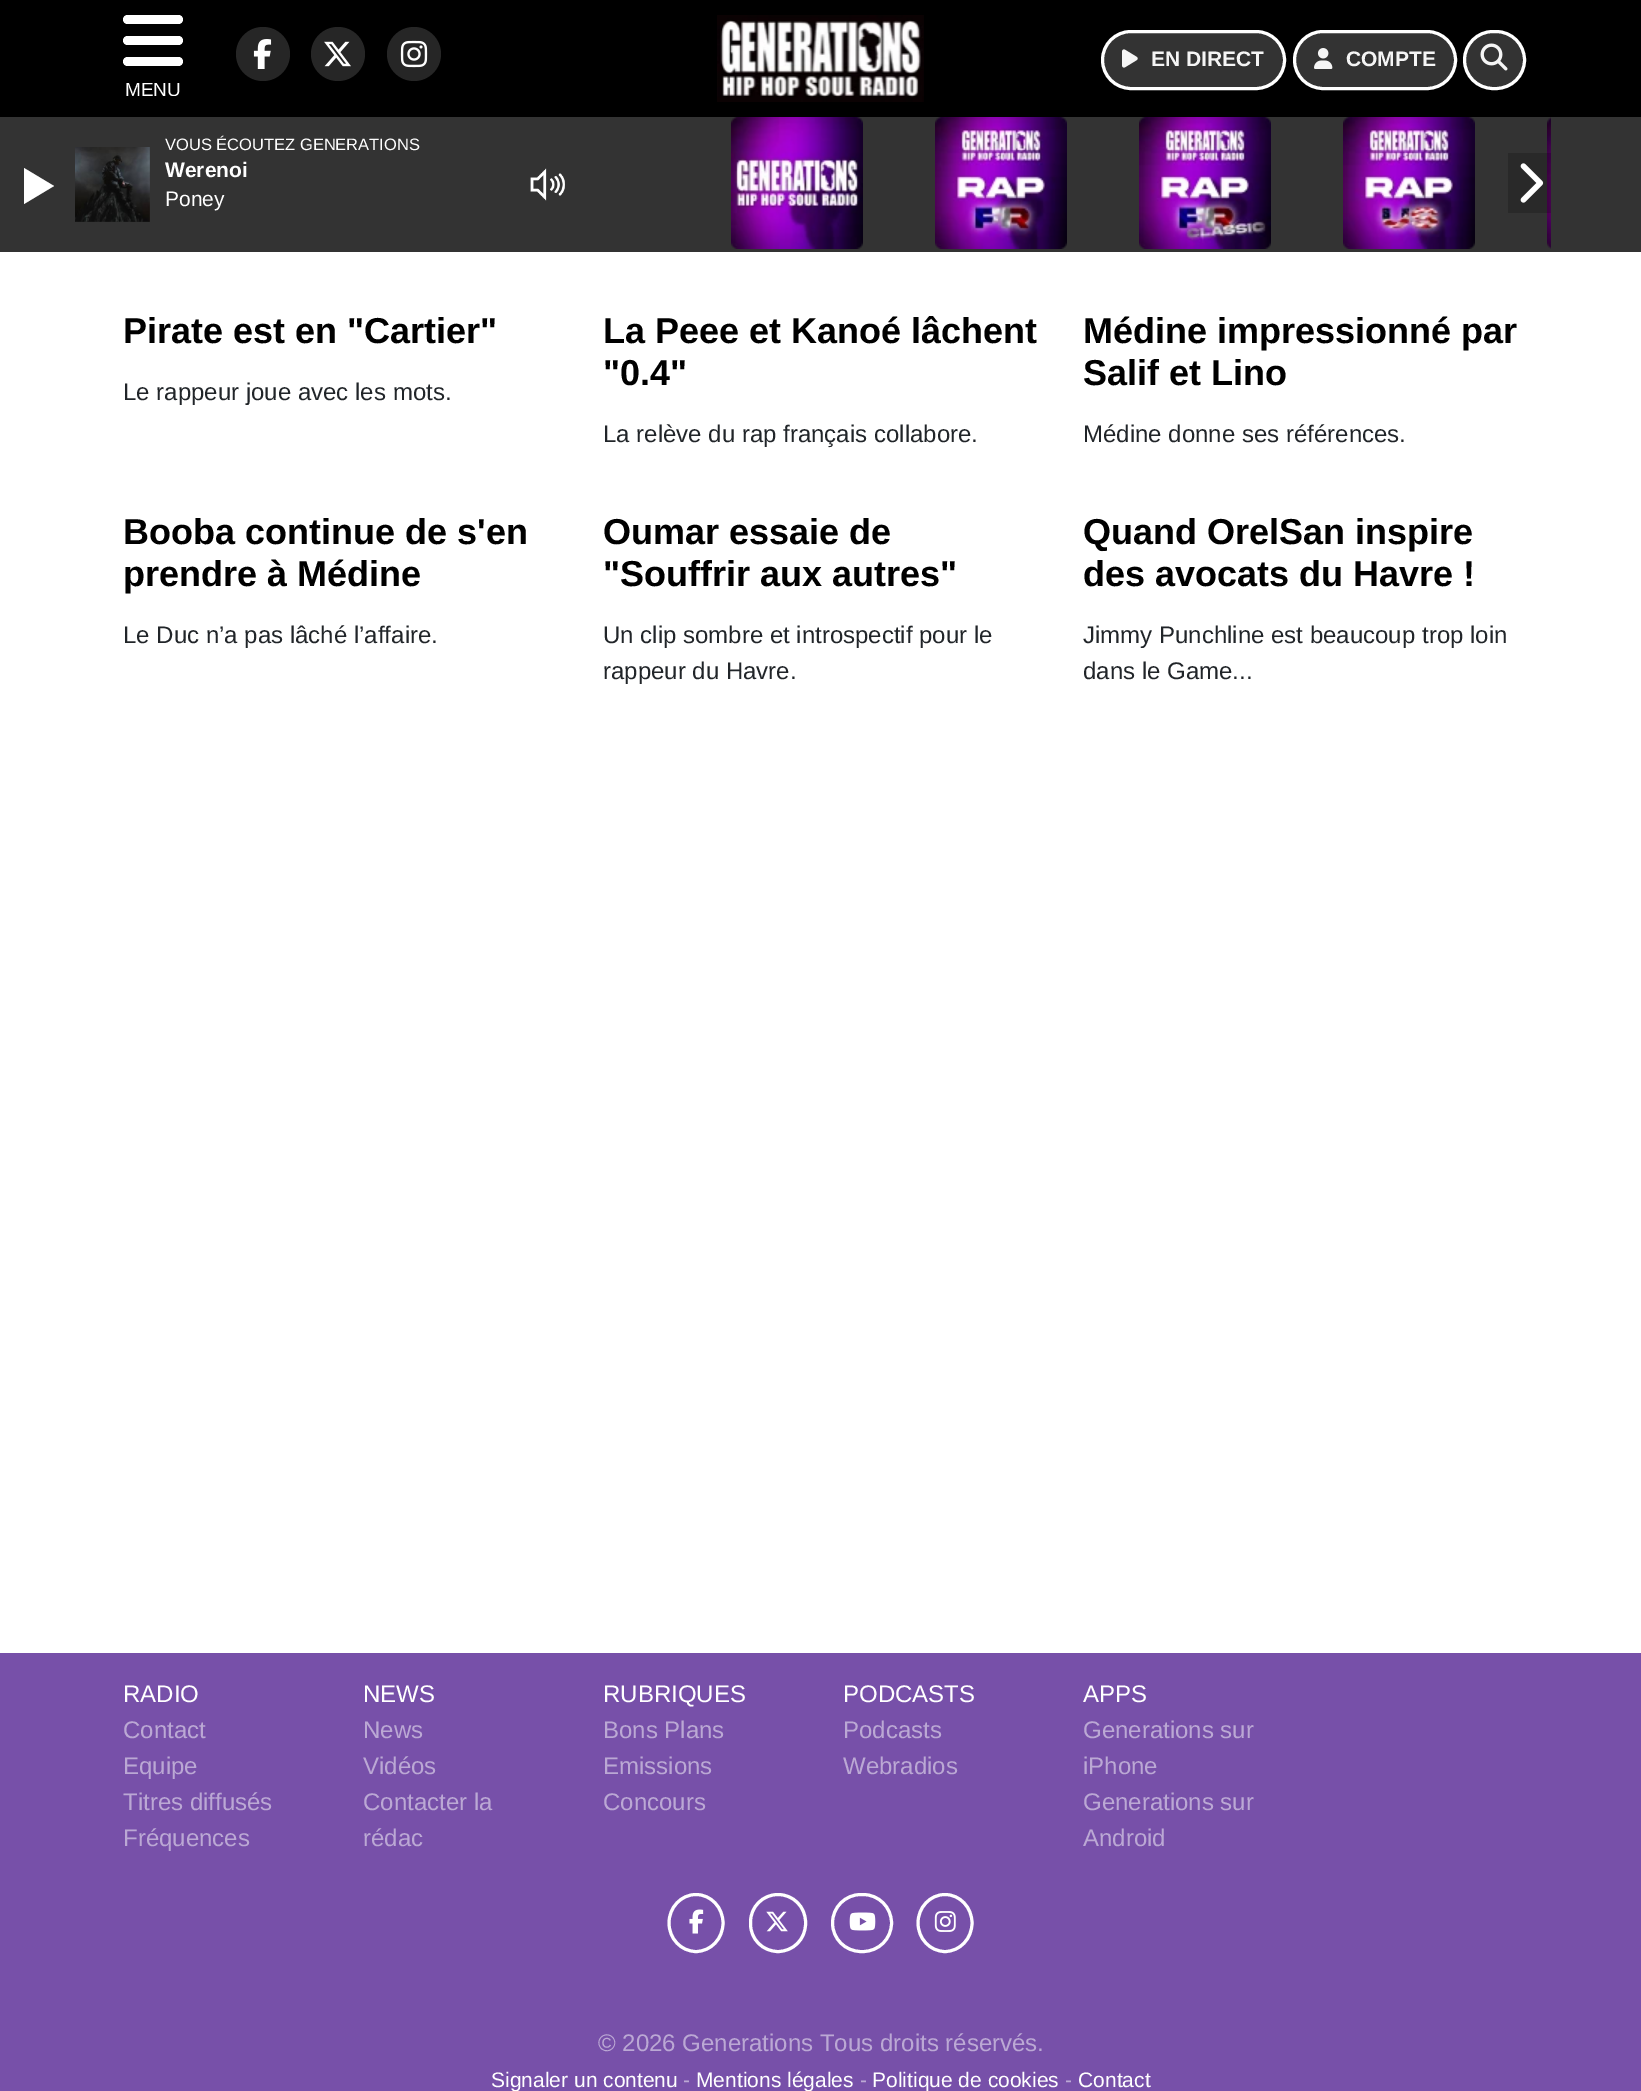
%!PS
<< /PageSize [1641 2091] /PageUsesTransparency true >> setpagedevice
/mt/moveto load def
/li/lineto load def
/ct/curveto load def
/cp/closepath load def
/fl/fill load def
/st/stroke load def
/gs/gsave load def
/gr/grestore load def
/lw/setlinewidth load def
/co { dup -16 bitshift 255 div exch dup -8 bitshift 255 and 255 div exch 255 and 255 div setrgbcolor } def
/fn { [ exch dup neg 0 0 3 -1 roll 0 0 ] selectfont } def
/tx { co fn moveto show } def
/bx { co rectfill } def
/al { dup .setfillconstantalpha .setstrokeconstantalpha } def
/ci { newpath 0 360 arc closepath } def
/rr { 5 dict begin { /r /h /w /y /x } { exch def } forall
  x r add y moveto x w add y 2 copy h add r arct x w add y h add x 1 index r arct
  x y h add x y r arct x y 2 copy exch w add exch r arct closepath end } def
/im { 5 dict begin { /h /w /y /x /name } { exch def } forall
  gsave x y translate w h scale
  w h 8 [w 0 0 h 0 0] name (r) file false 3 colorimage grestore end } def
0 .pushpdf14devicefilter
0 2091 translate 1 -1 scale
4 setmiterlimit
0 0 1641 2091 16#FFFFFF bx
0 0 1641 117 16#000000 bx
16#262626 co
263 54 27 ci fl
(media/1.raw) 253 39 19 30 im
338 54 27 ci fl
(media/2.raw) 324 41 27 26 im
414 54 27 ci fl
(media/3.raw) 400 40 28 28 im
(media/4.raw) 717 15 207 87 im
16#333333 co
1102.5 31.5 182 57 28.5 rr gs fl gr
16#FFFFFF co
3 lw
st
(media/5.raw) 1122 49 16 19 im
16#333333 co
1294.5 31.5 161 57 28.5 rr gs fl gr
16#FFFFFF co
st
(media/6.raw) 1314 48 19 21 im
16#333333 co
1464.5 31.5 60 57 28.5 rr gs fl gr
16#FFFFFF co
st
(media/7.raw) 1480 43 28 28 im
123 15 60 9 4.5 rr fl
123 36 60 9 4.5 rr fl
123 57 60 9 4.5 rr fl
0 1653 1641 438 16#7750A9 bx
16#FFFFFF co
696 1894.5 mt 711 1894.5 723 1907.5 723 1923 ct 723 1938.5 711 1951.5 696 1951.5 ct 681 1951.5 669 1938.5 669 1923 ct 669 1907.5 681 1894.5 696 1894.5 ct cp st
(media/8.raw) 689 1909 15 25 im
750.5 1894.5 55 57 27.5 rr st
(media/9.raw) 766 1911 22 21 im
832.5 1894.5 59 57 28.5 rr st
(media/10.raw) 849 1912 27 19 im
945 1894.5 mt 960 1894.5 972 1907.5 972 1923 ct 972 1938.5 960 1951.5 945 1951.5 ct 930 1951.5 918 1938.5 918 1923 ct 918 1907.5 930 1894.5 945 1894.5 ct cp st
(media/11.raw) 934 1911 22 21 im
0 117 1641 135 16#333333 bx
(media/12.raw) 75 147 75 75 im
16#FFFFFF co
24 204 mt 24 168 li 54 186 li cp fl
(media/13.raw) 530 168 35 33 im
(media/14.raw) 731 117 132 132 im
(media/15.raw) 935 117 132 132 im
(media/16.raw) 1139 117 132 132 im
(media/17.raw) 1343 117 132 132 im
(media/18.raw) 1547 117 4 132 im
0.2 al
1508 153 43 60 16#000000 bx
1 al
(media/19.raw) 1520 163 24 40 im
(EN DIRECT) 1151 66 /LiberationSans-Bold 21 16#F5F5F5 tx
(COMPTE) 1346 66 /LiberationSans-Bold 21 16#F5F5F5 tx
gs
123 15 60 81 rectclip
(MENU) 125 96 /LiberationSans-Regular 19 16#FFFFFF tx
gr
(Pirate est en "Cartier") 123 343 /LiberationSans-Bold 36 16#000000 tx
(Le rappeur joue avec les mots.) 123 400 /LiberationSans-Regular 24 16#212529 tx
(La Peee et Kanoé lâchent) 603 343 /LiberationSans-Bold 36 16#000000 tx
("0.4") 603 385 /LiberationSans-Bold 36 16#000000 tx
(La relève du rap français collabore.) 603 442 /LiberationSans-Regular 24 16#212529 tx
(Médine impressionné par) 1083 343 /LiberationSans-Bold 36 16#000000 tx
(Salif et Lino) 1083 385 /LiberationSans-Bold 36 16#000000 tx
(Médine donne ses références.) 1083 442 /LiberationSans-Regular 24 16#212529 tx
(Booba continue de s'en) 123 544 /LiberationSans-Bold 36 16#000000 tx
(prendre à Médine) 123 586 /LiberationSans-Bold 36 16#000000 tx
(Le Duc n’a pas lâché l’affaire.) 123 643 /LiberationSans-Regular 24 16#212529 tx
(Oumar essaie de) 603 544 /LiberationSans-Bold 36 16#000000 tx
("Souffrir aux autres") 603 586 /LiberationSans-Bold 36 16#000000 tx
(Un clip sombre et introspectif pour le) 603 643 /LiberationSans-Regular 24 16#212529 tx
(rappeur du Havre.) 603 679 /LiberationSans-Regular 24 16#212529 tx
(Quand OrelSan inspire) 1083 544 /LiberationSans-Bold 36 16#000000 tx
(des avocats du Havre !) 1083 586 /LiberationSans-Bold 36 16#000000 tx
(Jimmy Punchline est beaucoup trop loin) 1083 643 /LiberationSans-Regular 24 16#212529 tx
(dans le Game...) 1083 679 /LiberationSans-Regular 24 16#212529 tx
(RADIO) 123 1702 /LiberationSans-Regular 24 16#FFFFFF tx
(Contact) 123 1738 /LiberationSans-Regular 24 16#BBA8D4 tx
(Equipe) 123 1774 /LiberationSans-Regular 24 16#BBA8D4 tx
(Titres diffusés) 123 1810 /LiberationSans-Regular 24 16#BBA8D4 tx
(Fréquences) 123 1846 /LiberationSans-Regular 24 16#BBA8D4 tx
(NEWS) 363 1702 /LiberationSans-Regular 24 16#FFFFFF tx
(News) 363 1738 /LiberationSans-Regular 24 16#BBA8D4 tx
(Vidéos) 363 1774 /LiberationSans-Regular 24 16#BBA8D4 tx
(Contacter la) 363 1810 /LiberationSans-Regular 24 16#BBA8D4 tx
(rédac) 363 1846 /LiberationSans-Regular 24 16#BBA8D4 tx
(RUBRIQUES) 603 1702 /LiberationSans-Regular 24 16#FFFFFF tx
(Bons Plans) 603 1738 /LiberationSans-Regular 24 16#BBA8D4 tx
(Emissions) 603 1774 /LiberationSans-Regular 24 16#BBA8D4 tx
(Concours) 603 1810 /LiberationSans-Regular 24 16#BBA8D4 tx
(PODCASTS) 843 1702 /LiberationSans-Regular 24 16#FFFFFF tx
(Podcasts) 843 1738 /LiberationSans-Regular 24 16#BBA8D4 tx
(Webradios) 843 1774 /LiberationSans-Regular 24 16#BBA8D4 tx
(APPS) 1083 1702 /LiberationSans-Regular 24 16#FFFFFF tx
(Generations sur) 1083 1738 /LiberationSans-Regular 24 16#BBA8D4 tx
(iPhone) 1083 1774 /LiberationSans-Regular 24 16#BBA8D4 tx
(Generations sur) 1083 1810 /LiberationSans-Regular 24 16#BBA8D4 tx
(Android) 1083 1846 /LiberationSans-Regular 24 16#BBA8D4 tx
(© 2026 Generations Tous droits réservés.) 598 2051 /LiberationSans-Regular 24 16#BBA8D4 tx
(Signaler un contenu) 491 2087 /LiberationSans-Regular 21 16#FFFFFF tx
(-) 683 2087 /LiberationSans-Regular 21 16#BBA8D4 tx
(Mentions légales) 696 2087 /LiberationSans-Regular 21 16#FFFFFF tx
(-) 860 2087 /LiberationSans-Regular 21 16#BBA8D4 tx
(Politique de cookies) 872 2087 /LiberationSans-Regular 21 16#FFFFFF tx
(-) 1065 2087 /LiberationSans-Regular 21 16#BBA8D4 tx
(Contact) 1078 2087 /LiberationSans-Regular 21 16#FFFFFF tx
(VOUS ÉCOUTEZ GENERATIONS) 165 150 /LiberationSans-Regular 16.5 16#FFFFFF tx
(Werenoi) 165 177 /LiberationSans-Bold 21 16#FFFFFF tx
(Poney) 165 206 /LiberationSans-Regular 21 16#FFFFFF tx
.poppdf14devicefilter showpage
